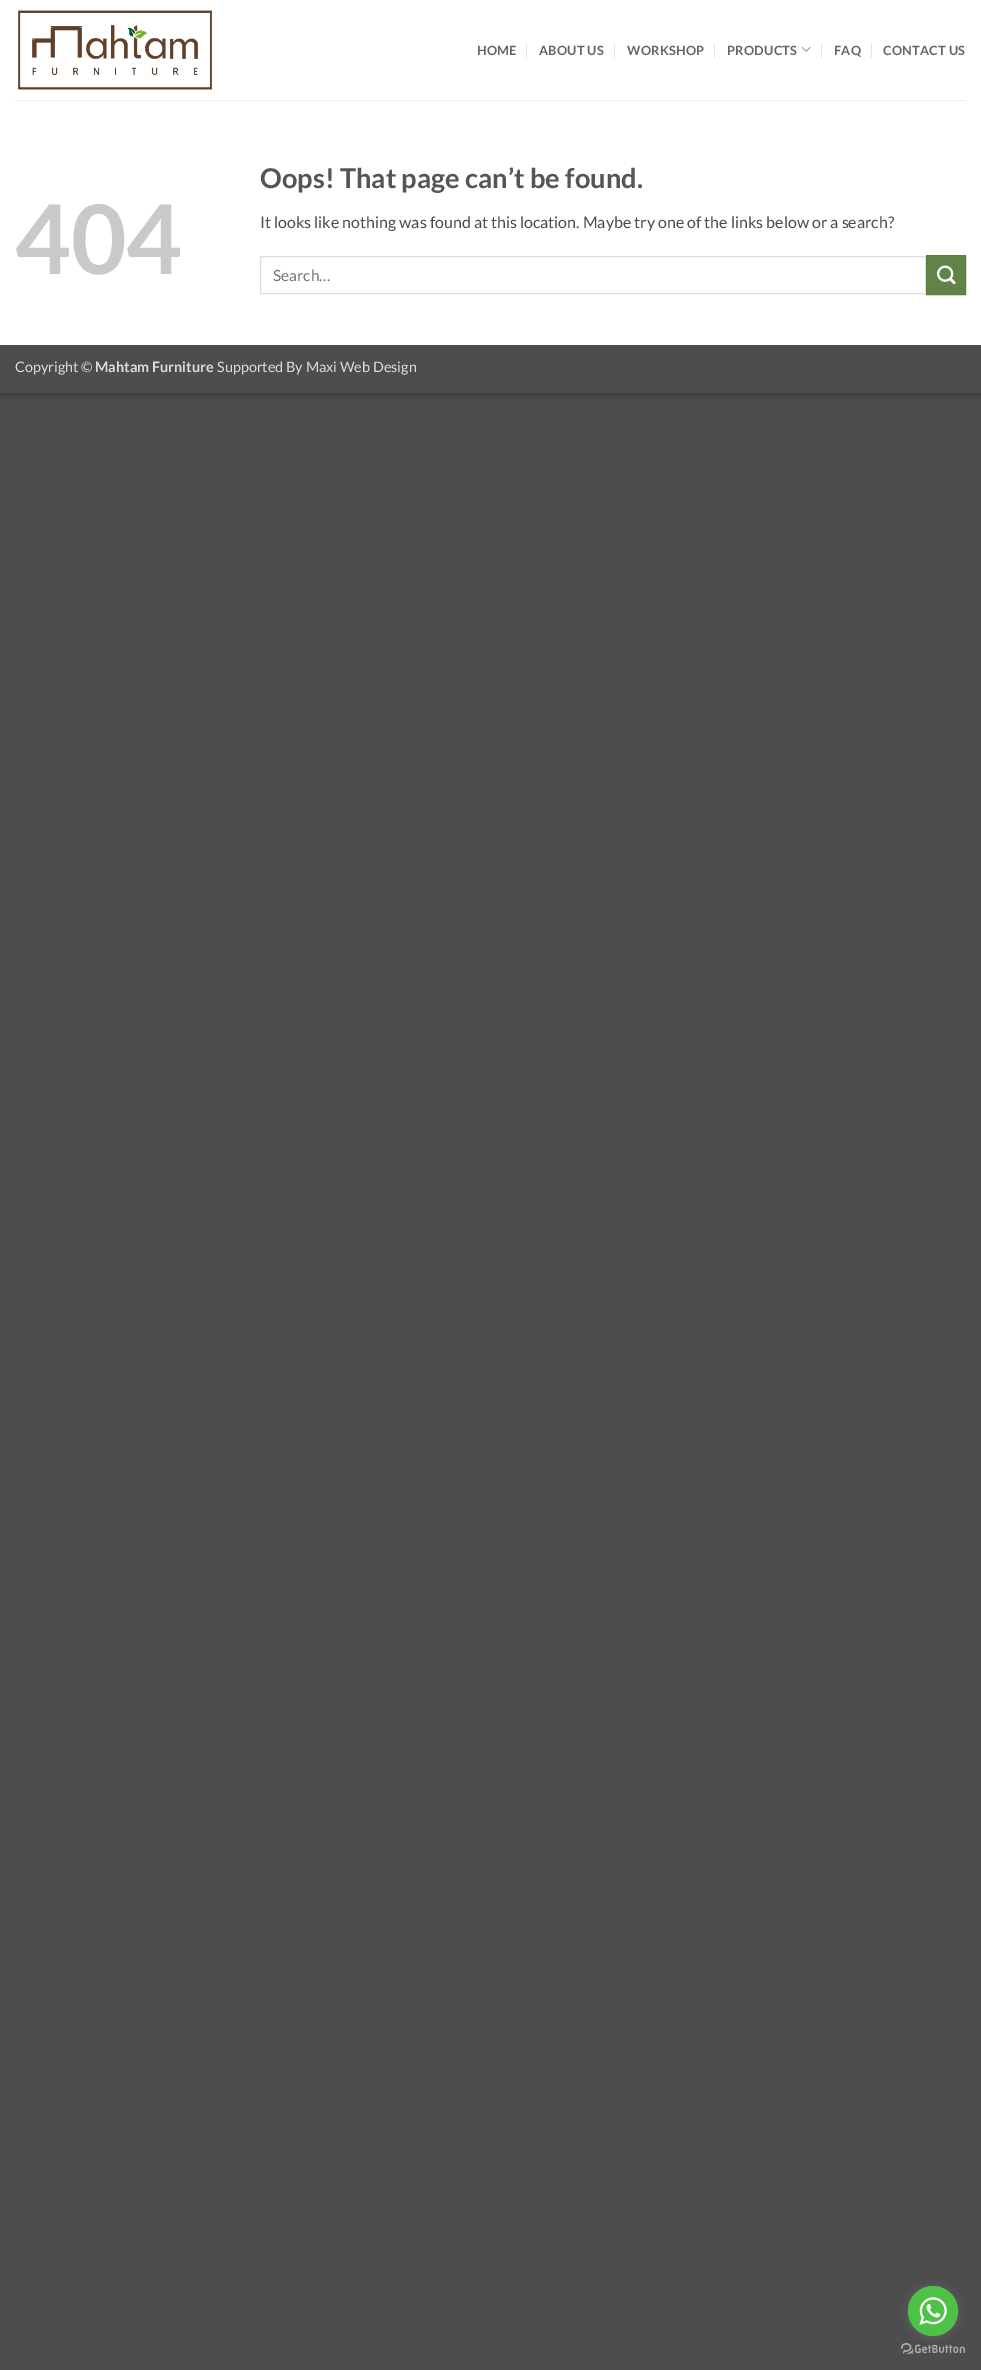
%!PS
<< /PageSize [981 2370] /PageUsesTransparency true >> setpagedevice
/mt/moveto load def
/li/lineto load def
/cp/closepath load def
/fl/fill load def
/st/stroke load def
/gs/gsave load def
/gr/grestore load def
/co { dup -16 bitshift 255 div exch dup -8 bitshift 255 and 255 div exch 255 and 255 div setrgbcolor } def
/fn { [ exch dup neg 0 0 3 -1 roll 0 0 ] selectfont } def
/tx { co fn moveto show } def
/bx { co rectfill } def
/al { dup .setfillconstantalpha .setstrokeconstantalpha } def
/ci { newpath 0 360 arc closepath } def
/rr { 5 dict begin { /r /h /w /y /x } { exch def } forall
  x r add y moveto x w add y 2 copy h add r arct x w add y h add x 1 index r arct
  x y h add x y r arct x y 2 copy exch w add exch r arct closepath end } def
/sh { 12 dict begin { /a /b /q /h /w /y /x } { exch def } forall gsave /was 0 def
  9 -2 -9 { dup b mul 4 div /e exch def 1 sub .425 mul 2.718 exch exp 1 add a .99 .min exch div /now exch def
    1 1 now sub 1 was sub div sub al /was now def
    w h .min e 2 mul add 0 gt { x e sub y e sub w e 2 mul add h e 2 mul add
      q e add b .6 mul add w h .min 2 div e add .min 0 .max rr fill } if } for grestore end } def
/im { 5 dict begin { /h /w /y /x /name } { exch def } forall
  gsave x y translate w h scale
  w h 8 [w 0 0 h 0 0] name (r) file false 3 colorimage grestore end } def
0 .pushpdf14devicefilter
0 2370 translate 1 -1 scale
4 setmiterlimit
0 0 981 2370 16#4D4D4D bx
16#000000 co
0 3 981 393 0 3 .23 sh
0 0 981 345 16#FFFFFF bx
(media/1.raw) 18 10 194 80 im
526 43 1 15 16#E6E6E6 bx
614 43 1 15 16#E6E6E6 bx
714 43 1 15 16#E6E6E6 bx
(media/2.raw) 801 46 10 6 im
821 43 1 15 16#E6E6E6 bx
871 43 1 15 16#E6E6E6 bx
15 100 951 1 16#EDEDED bx
16#DDDDDD co
260.5 256.5 665 37 rectstroke
16#608447 co
926.5 255.5 mt 965.5 255.5 li 965.5 294.5 li 926.5 294.5 li cp gs fl gr
16#5B7D43 co
st
(media/3.raw) 937 265 19 20 im
0 345 981 48 16#4D4D4D bx
(media/5.raw) 901 2343 64 11 im
16#888888 co
908 2287 50 50 25 3.5 .4 sh
16#4DC247 co
933 2311 25 ci fl
(media/4.raw) 919 2297 28 28 im
/Lato-Bold 12.75 fn
16#656565 co
477 55 mt .25 0 (HOME) ashow
539 55 mt .25 0 (ABOUT US) ashow
627 55 mt .25 0 (WORKSHOP) ashow
727 55 mt .25 0 (PRODUCTS) ashow
834 55 mt .25 0 (FAQ) ashow
883 55 mt .25 0 (CONTACT US) ashow
(404) 15 274 /Lato-Bold 96 16#C9C9C9 tx
(Oops! That page can’t be found.) 260 188 /Lato-Bold 27.25 16#555555 tx
(It looks like nothing was found at this location. Maybe try one of the links below or a search?) 260 228 /Lato-Regular 16 16#4A4A4A tx
(Search…) 273 281 /Lato-Regular 15.5 16#757575 tx
(Copyright ©) 15 372 /Lato-Regular 14.4 16#DBDBDB tx
(Mahtam Furniture) 95 372 /Lato-Bold 14.4 16#DBDBDB tx
(Supported By Maxi Web Design) 217 372 /Lato-Regular 14.4 16#DBDBDB tx
.poppdf14devicefilter showpage
